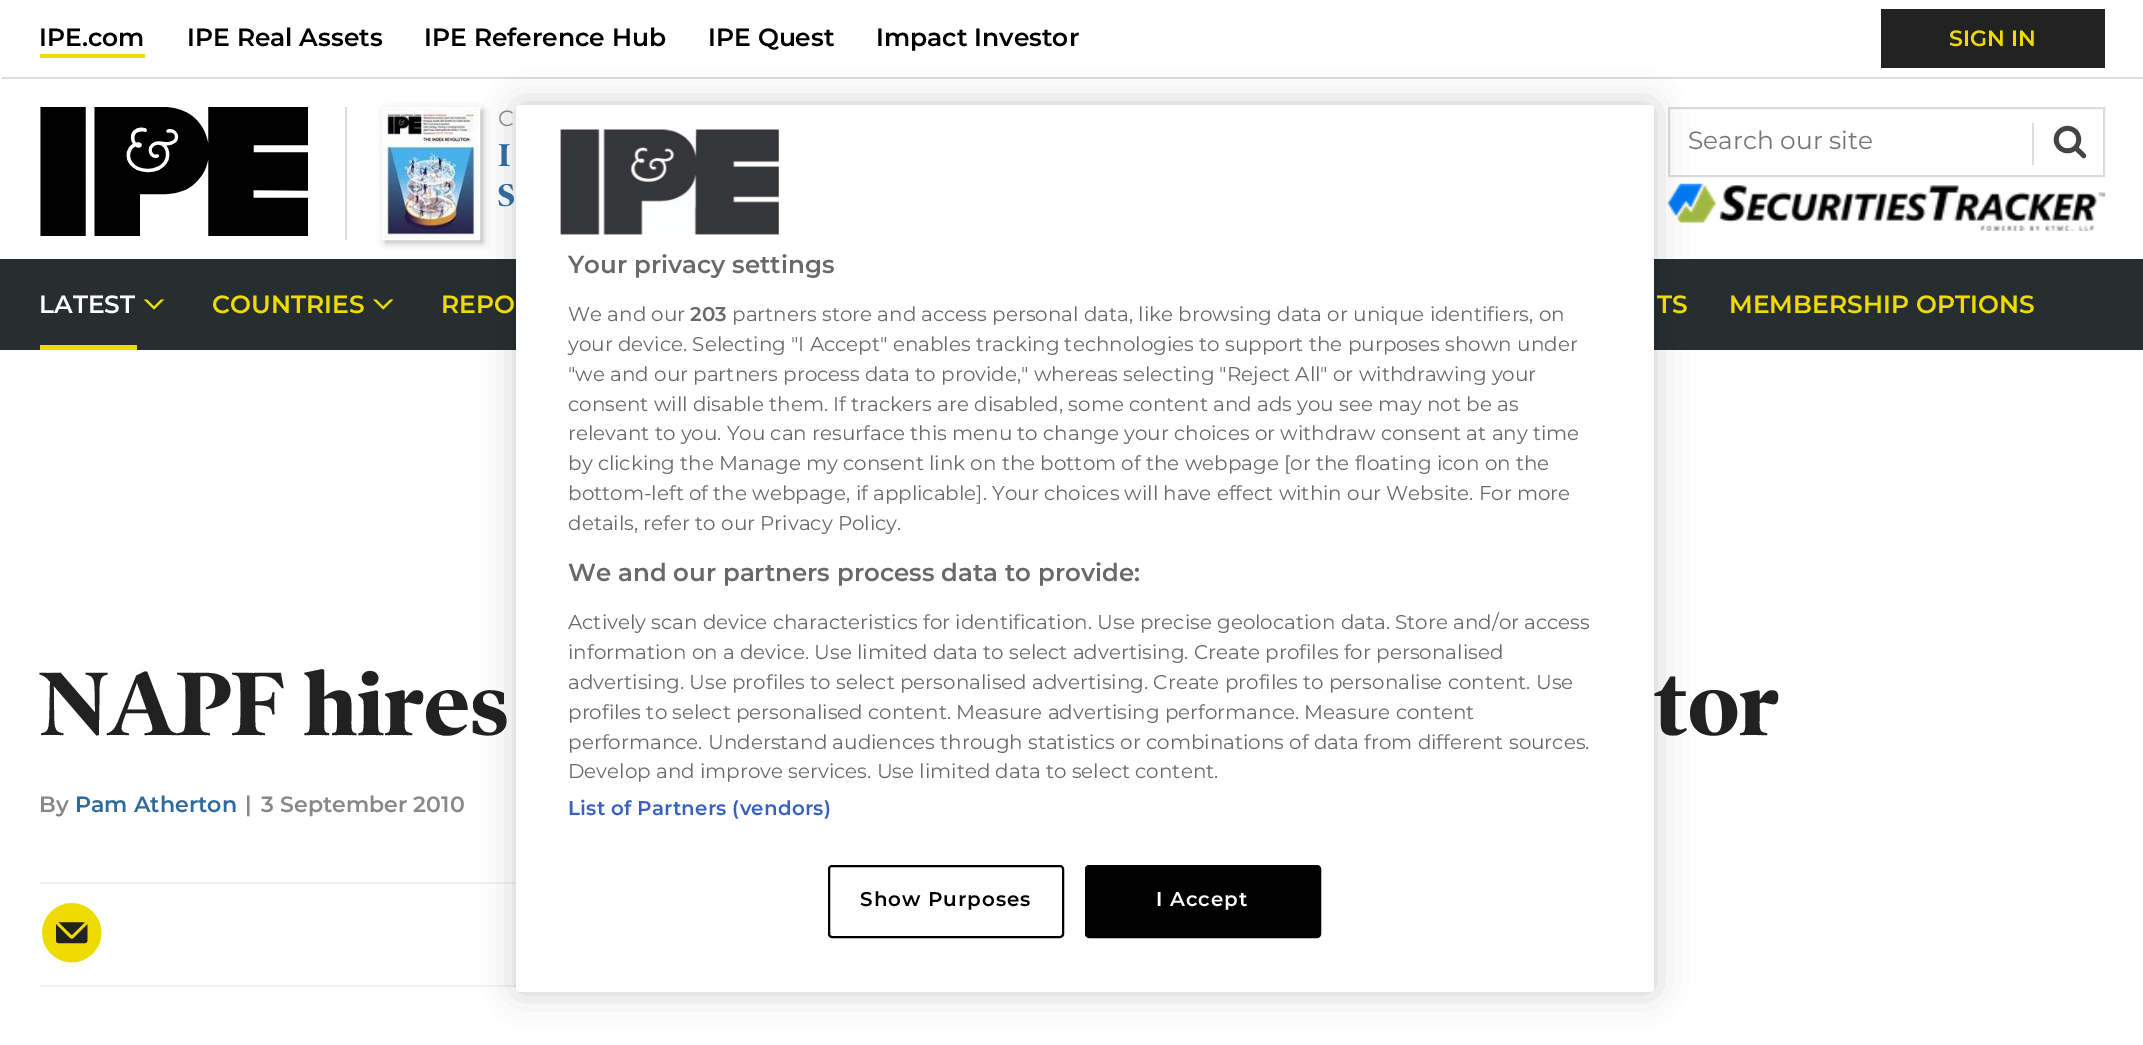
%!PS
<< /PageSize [2143 1045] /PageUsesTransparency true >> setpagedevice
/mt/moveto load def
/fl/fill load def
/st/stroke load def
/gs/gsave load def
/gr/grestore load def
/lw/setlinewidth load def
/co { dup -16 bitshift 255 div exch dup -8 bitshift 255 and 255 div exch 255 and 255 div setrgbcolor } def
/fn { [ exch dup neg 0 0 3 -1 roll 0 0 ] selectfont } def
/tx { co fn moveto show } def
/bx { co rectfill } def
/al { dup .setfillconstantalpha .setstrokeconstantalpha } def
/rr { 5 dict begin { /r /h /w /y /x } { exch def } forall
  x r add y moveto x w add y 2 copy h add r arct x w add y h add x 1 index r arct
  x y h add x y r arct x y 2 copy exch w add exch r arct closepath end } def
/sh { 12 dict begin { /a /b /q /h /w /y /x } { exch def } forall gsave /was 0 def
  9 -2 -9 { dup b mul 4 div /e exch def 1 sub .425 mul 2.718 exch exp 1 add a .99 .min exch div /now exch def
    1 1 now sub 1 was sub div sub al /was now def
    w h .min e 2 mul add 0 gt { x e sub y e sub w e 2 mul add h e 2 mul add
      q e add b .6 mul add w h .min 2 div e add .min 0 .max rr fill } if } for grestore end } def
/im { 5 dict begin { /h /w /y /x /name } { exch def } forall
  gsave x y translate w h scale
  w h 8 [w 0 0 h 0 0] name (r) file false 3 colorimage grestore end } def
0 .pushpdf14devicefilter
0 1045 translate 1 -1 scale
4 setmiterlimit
0 0 2143 1045 16#FFFFFF bx
2 77 2141 2 16#DCDCDC bx
40 54 105 4 16#EEDC00 bx
1881 9 224 59 16#222222 bx
2032 123 2 42 16#DCDCDC bx
2 lw
1669 108 435 68 rectstroke
(media/1.raw) 2053 125 34 34 im
(media/2.raw) 40 107 268 129 im
345 107 2 133 16#DCDCDC bx
16#000000 co
385 110 98 133 0 3.5 .25 sh
16#FFFFFF co
383 108 96 131 rectstroke
(media/3.raw) 383 108 95 130 im
(media/4.raw) 1667 183 439 48 im
0 259 2143 91 16#262E2F bx
(media/5.raw) 144 299 21 11 im
40 345 97 5 16#EEDC00 bx
(media/6.raw) 373 299 21 11 im
40 882 476 2 16#F0F2F2 bx
40 985 476 2 16#F0F2F2 bx
(media/7.raw) 42 903 60 60 im
16#000000 co
516 105 1138 887 4 16 .2 sh
16#FFFFFF co
516 105 1138 887 4 rr fl
(media/8.raw) 560 129 219 106 im
16#000000 co
829 866 234 71 3 rr st
1086 866 234 71 3 rr gs fl gr
st
(IPE.com) 39 46 /Montserrat-SemiBold 24.9 16#000000 tx
(IPE Real Assets) 187 46 /Montserrat-SemiBold 24.9 16#000000 tx
(IPE Reference Hub) 424 46 /Montserrat-SemiBold 24.9 16#000000 tx
(IPE Quest) 708 46 /Montserrat-SemiBold 24.9 16#000000 tx
(Impact Investor) 876 46 /Montserrat-SemiBold 24.9 16#000000 tx
(SIGN IN) 1949 46 /Montserrat-SemiBold 22.1 16#EEDC00 tx
(Search our site) 1688 149 /Montserrat-Regular 24.9 16#757575 tx
(C) 498 126 /Montserrat-Regular 22.1 16#888888 tx
(I) 498 166 /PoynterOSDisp-Bold 32 16#2F699D tx
(S) 498 206 /PoynterOSDisp-Bold 32 16#2F699D tx
(LATEST) 39 313 /Montserrat-SemiBold 24.9 16#FFFFFF tx
(COUNTRIES) 212 313 /Montserrat-SemiBold 24.9 16#EEDC00 tx
(REPO) 441 313 /Montserrat-SemiBold 24.9 16#EEDC00 tx
(TS) 1657 313 /Montserrat-SemiBold 24.9 16#EEDC00 tx
(MEMBERSHIP OPTIONS) 1729 313 /Montserrat-SemiBold 24.9 16#EEDC00 tx
(NAPF hires) 39 735 /PoynterOSDisp-Bold 91 16#212121 tx
(tor) 1655 735 /PoynterOSDisp-Bold 91 16#212121 tx
(By) 39 812 /Montserrat-SemiBold 22.1 16#888888 tx
(Pam Atherton) 75 812 /Montserrat-SemiBold 22.1 16#2F699D tx
(|) 245 812 /Montserrat-SemiBold 22.1 16#888888 tx
(3 September 2010) 261 812 /Montserrat-SemiBold 22.1 16#888888 tx
(Your privacy settings) 568 273 /Montserrat-SemiBold 24.5 16#696969 tx
(We and our) 568 321 /Montserrat-Regular 19.92 16#696969 tx
(203) 690 321 /Montserrat-SemiBold 19.92 16#696969 tx
(partners store and access personal data, like browsing data or unique identifiers, on) 732 321 /Montserrat-Regular 19.92 16#696969 tx
(your device. Selecting "I Accept" enables tracking technologies to support the purposes shown under) 568 351 /Montserrat-Regular 19.92 16#696969 tx
("we and our partners process data to provide," whereas selecting "Reject All" or withdrawing your) 568 381 /Montserrat-Regular 19.92 16#696969 tx
(consent will disable them. If trackers are disabled, some content and ads you see may not be as) 568 411 /Montserrat-Regular 19.92 16#696969 tx
(relevant to you. You can resurface this menu to change your choices or withdraw consent at any time) 568 440 /Montserrat-Regular 19.92 16#696969 tx
(by clicking the Manage my consent link on the bottom of the webpage [or the floating icon on the) 568 470 /Montserrat-Regular 19.92 16#696969 tx
(bottom-left of the webpage, if applicable]. Your choices will have effect within our Website. For more) 568 500 /Montserrat-Regular 19.92 16#696969 tx
(details, refer to our Privacy Policy.) 568 530 /Montserrat-Regular 19.92 16#696969 tx
(We and our partners process data to provide:) 568 581 /Montserrat-SemiBold 24.5 16#696969 tx
(Actively scan device characteristics for identification. Use precise geolocation data. Store and/or access) 568 629 /Montserrat-Regular 19.92 16#696969 tx
(information on a device. Use limited data to select advertising. Create profiles for personalised) 568 659 /Montserrat-Regular 19.92 16#696969 tx
(advertising. Use profiles to select personalised advertising. Create profiles to personalise content. Use) 568 689 /Montserrat-Regular 19.92 16#696969 tx
(profiles to select personalised content. Measure advertising performance. Measure content) 568 719 /Montserrat-Regular 19.92 16#696969 tx
(performance. Understand audiences through statistics or combinations of data from different sources.) 568 749 /Montserrat-Regular 19.92 16#696969 tx
(Develop and improve services. Use limited data to select content.) 568 778 /Montserrat-Regular 19.92 16#696969 tx
/Montserrat-SemiBold 19.92 fn
16#3860BE co
568 815 mt .2 0 (List of Partners \(vendors\)) ashow
16#000000 co
860 906 mt 1 0 (Show Purposes) ashow
16#FFFFFF co
1156 906 mt 1 0 (I Accept) ashow
.poppdf14devicefilter showpage
